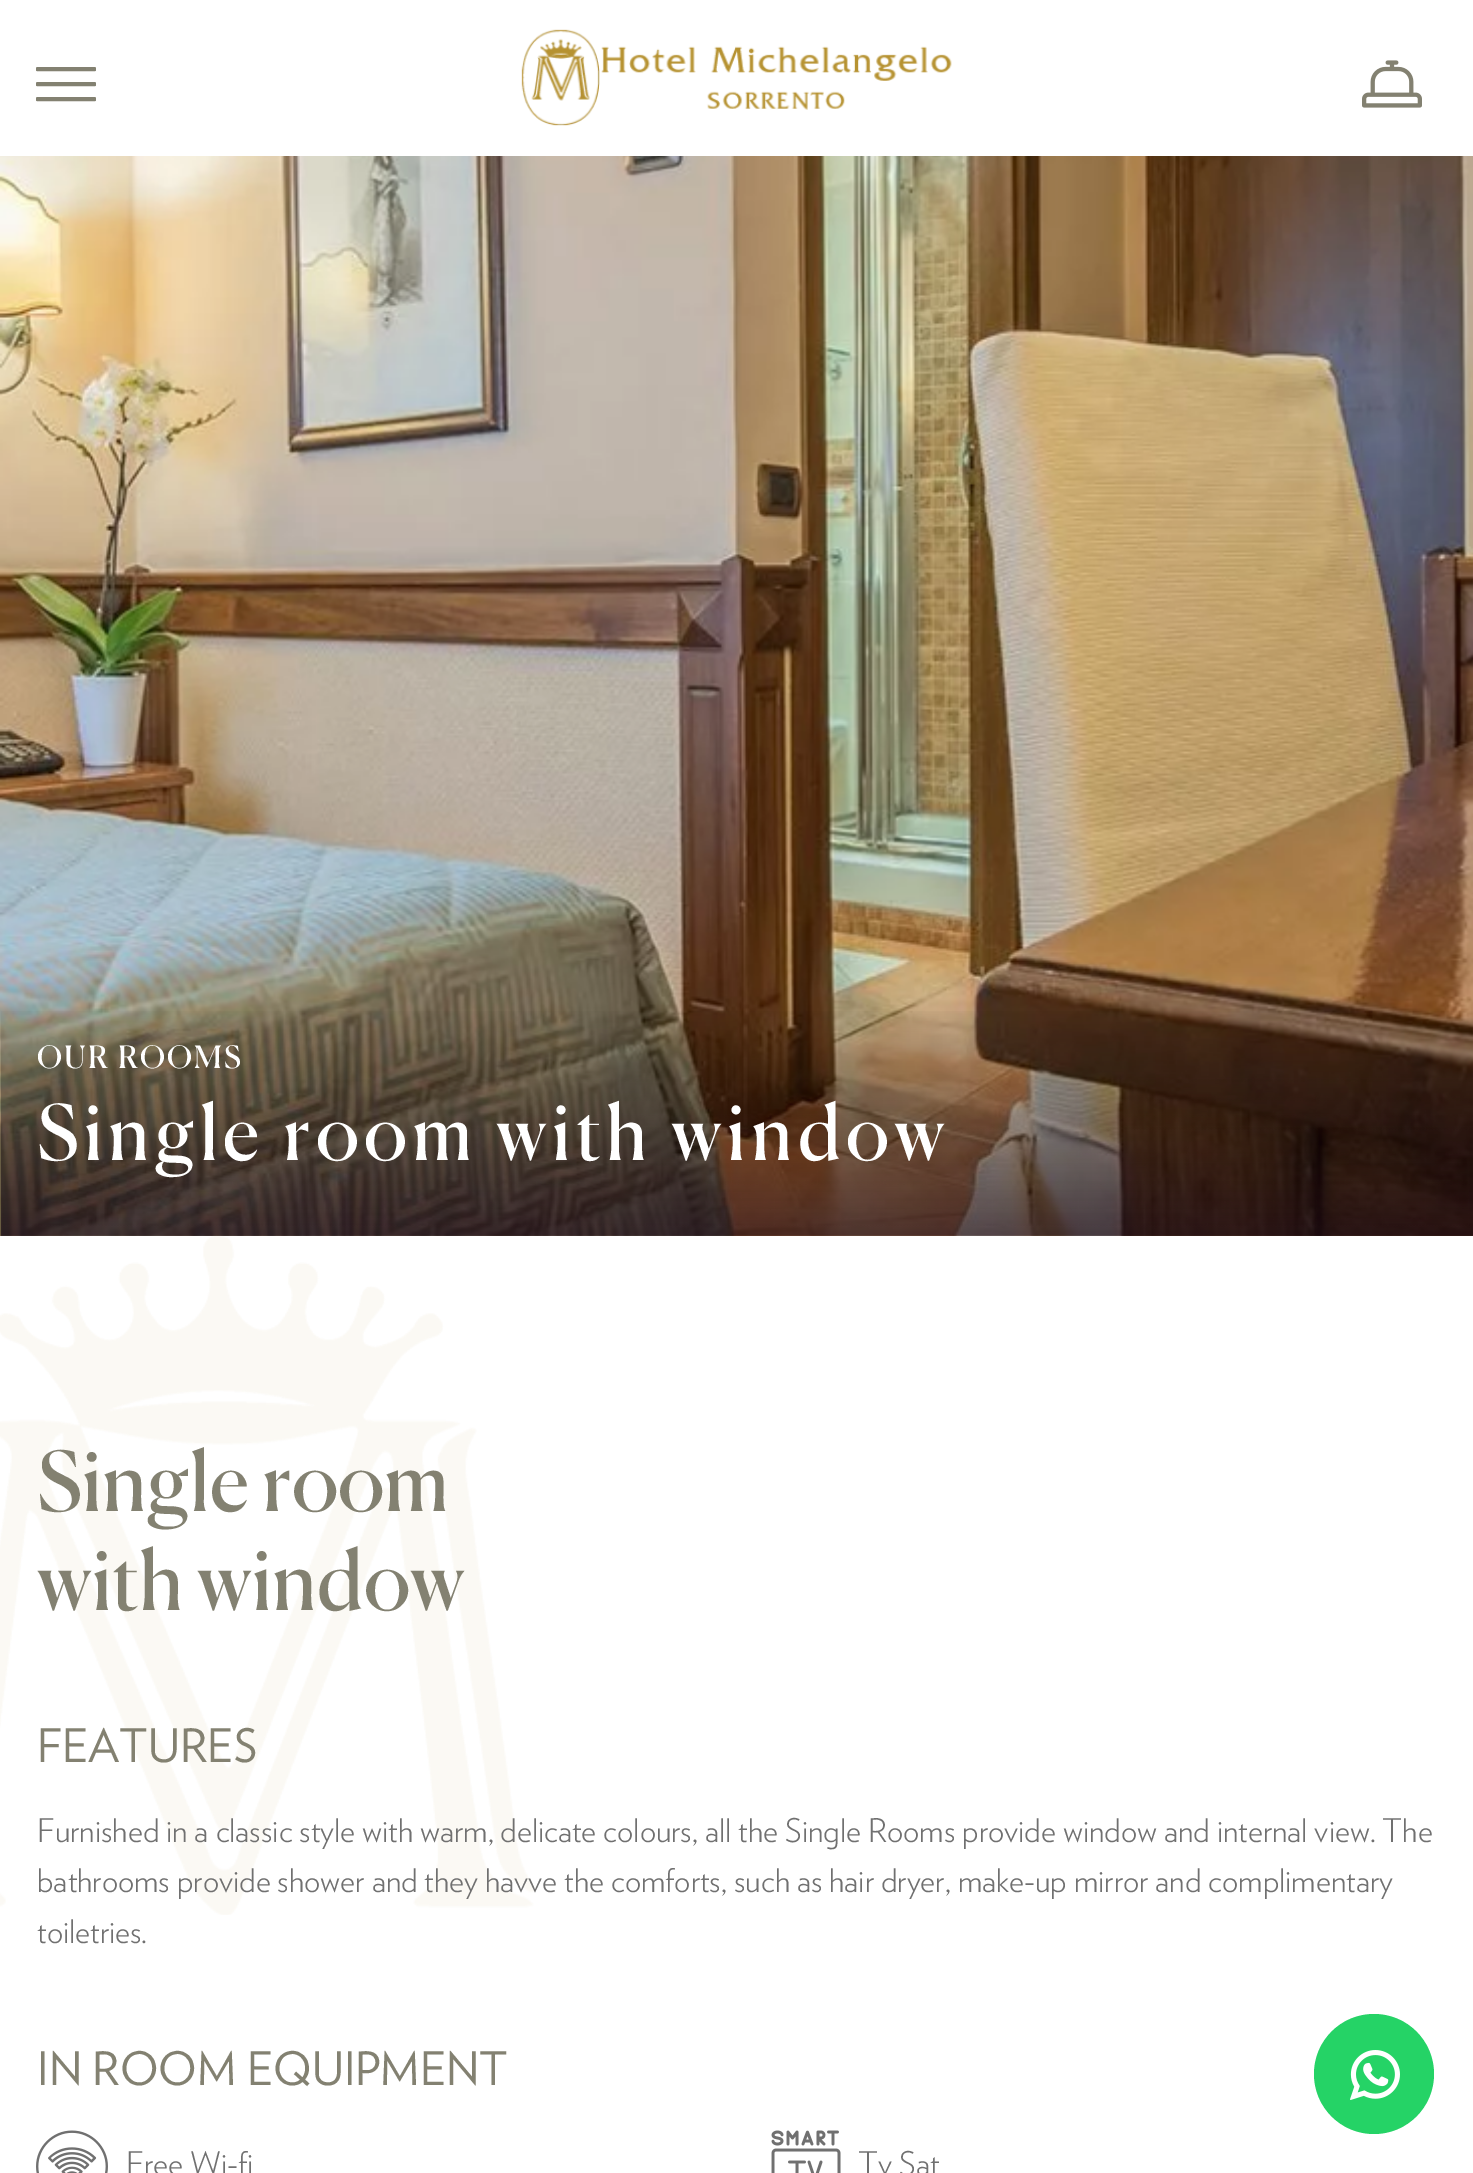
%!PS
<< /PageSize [1473 2173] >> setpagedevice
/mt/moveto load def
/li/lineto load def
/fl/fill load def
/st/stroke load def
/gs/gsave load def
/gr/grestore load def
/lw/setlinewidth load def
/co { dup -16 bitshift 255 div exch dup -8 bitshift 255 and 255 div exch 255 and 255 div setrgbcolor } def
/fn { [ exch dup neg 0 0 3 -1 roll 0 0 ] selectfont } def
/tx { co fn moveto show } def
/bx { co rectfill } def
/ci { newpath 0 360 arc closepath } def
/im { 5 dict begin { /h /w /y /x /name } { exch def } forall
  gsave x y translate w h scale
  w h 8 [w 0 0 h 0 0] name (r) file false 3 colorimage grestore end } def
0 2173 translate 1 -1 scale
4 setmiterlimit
0 0 1473 2173 16#FFFFFF bx
(media/1.raw) 0 156 1473 1080 im
(media/2.raw) 0 156 1473 1080 im
(media/3.raw) 521 29 79 97 im
(media/4.raw) 601 46 351 64 im
gs
36 54 60 60 rectclip
16#838171 co
4 lw
1 setlinecap
1 setlinejoin
37.5 69 mt 94.5 69 li 37.5 84 mt 94.5 84 li 37.5 99 mt 94.5 99 li st
gr
(media/5.raw) 1362 60 60 48 im
(media/6.raw) 1 1011 1472 225 im
(media/7.raw) 0 1236 534 679 im
(media/8.raw) 36 2130 72 43 im
(media/9.raw) 771 2130 70 43 im
16#25D366 co
1374 2074 60 ci fl
(media/10.raw) 1350 2050 50 50 im
/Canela-Regular 30.75 fn
16#FFFFFF co
37 1068 mt 2.25 0 (OUR ROOMS) ashow
/Canela-Regular 76.25 fn
37 1160 mt 5.3 0 (Single room with window) ashow
(Single room) 37 1511 /Canela-Regular 82.25 16#838171 tx
(with window) 37 1610 /Canela-Regular 82.25 16#838171 tx
(FEATURES) 37 1762 /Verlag-Regular 46 16#838171 tx
(Furnished in a classic style with warm, delicate colours, all the Single Rooms provide window and internal view. The) 37 1842 /Verlag-Light 32.55 16#707070 tx
(bathrooms provide shower and they havve the comforts, such as hair dryer, make-up mirror and complimentary) 37 1892 /Verlag-Light 32.55 16#707070 tx
(toiletries.) 37 1943 /Verlag-Light 32.55 16#707070 tx
(IN ROOM EQUIPMENT) 37 2085 /Verlag-Regular 46 16#838171 tx
(Free Wi-fi) 126 2175 /Verlag-Light 32.55 16#707070 tx
(Tv Sat) 858 2175 /Verlag-Light 32.55 16#707070 tx
showpage
